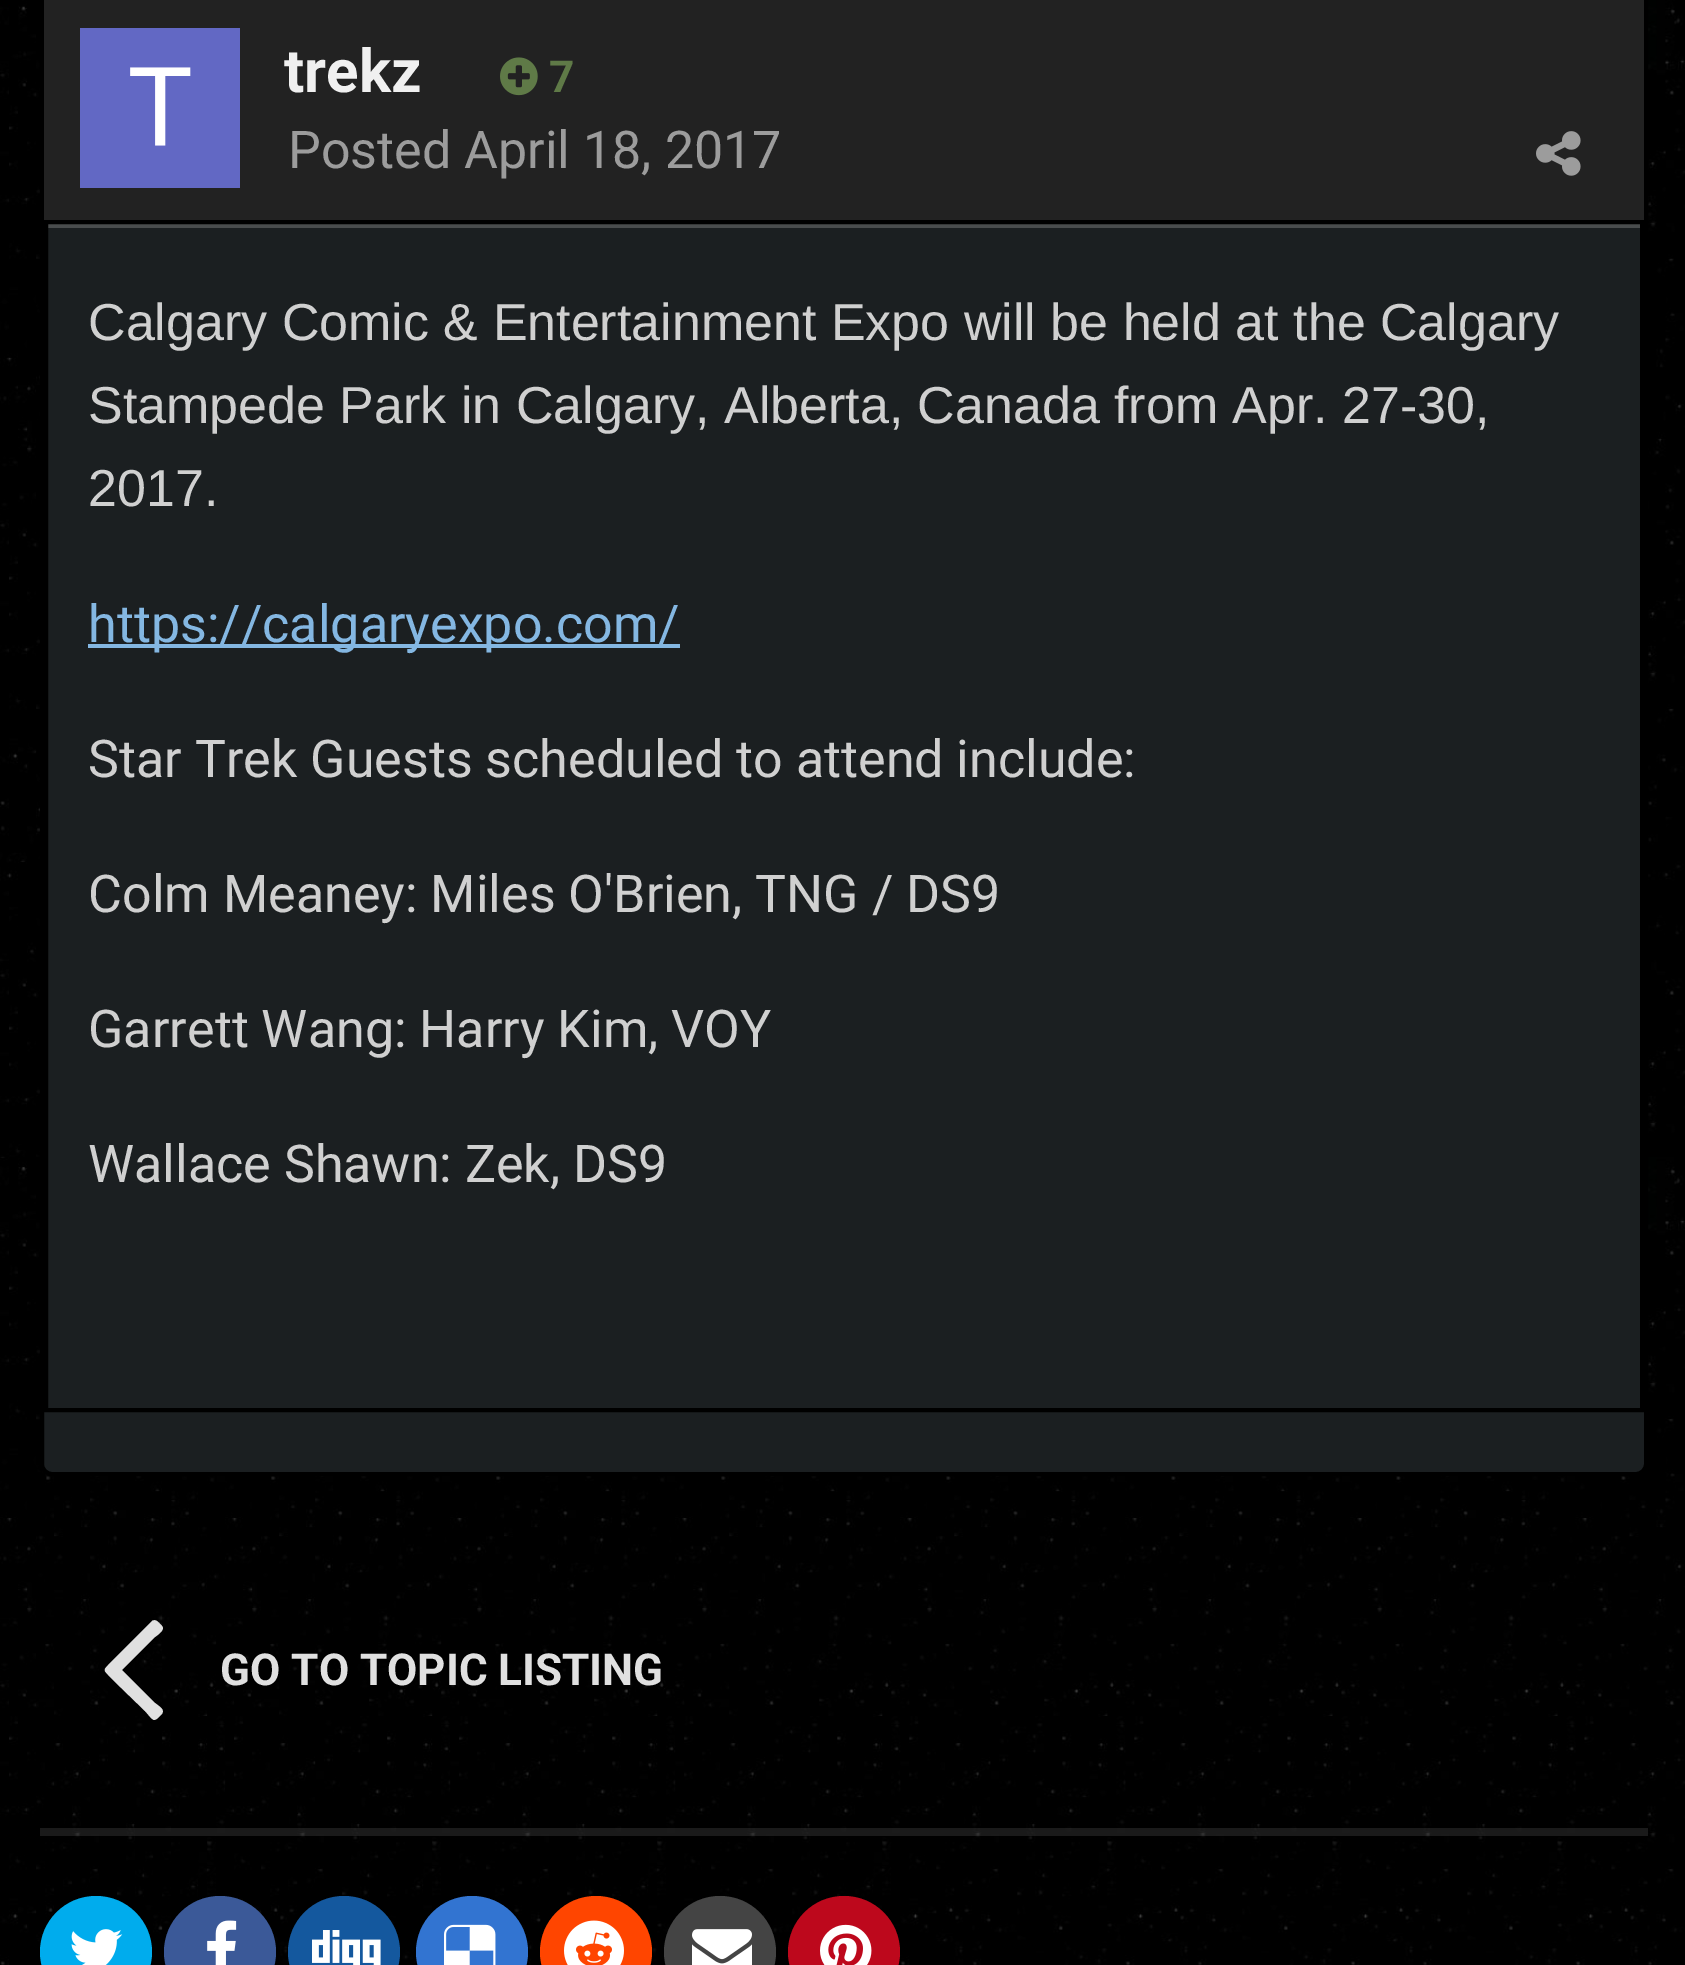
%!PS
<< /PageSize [1685 1965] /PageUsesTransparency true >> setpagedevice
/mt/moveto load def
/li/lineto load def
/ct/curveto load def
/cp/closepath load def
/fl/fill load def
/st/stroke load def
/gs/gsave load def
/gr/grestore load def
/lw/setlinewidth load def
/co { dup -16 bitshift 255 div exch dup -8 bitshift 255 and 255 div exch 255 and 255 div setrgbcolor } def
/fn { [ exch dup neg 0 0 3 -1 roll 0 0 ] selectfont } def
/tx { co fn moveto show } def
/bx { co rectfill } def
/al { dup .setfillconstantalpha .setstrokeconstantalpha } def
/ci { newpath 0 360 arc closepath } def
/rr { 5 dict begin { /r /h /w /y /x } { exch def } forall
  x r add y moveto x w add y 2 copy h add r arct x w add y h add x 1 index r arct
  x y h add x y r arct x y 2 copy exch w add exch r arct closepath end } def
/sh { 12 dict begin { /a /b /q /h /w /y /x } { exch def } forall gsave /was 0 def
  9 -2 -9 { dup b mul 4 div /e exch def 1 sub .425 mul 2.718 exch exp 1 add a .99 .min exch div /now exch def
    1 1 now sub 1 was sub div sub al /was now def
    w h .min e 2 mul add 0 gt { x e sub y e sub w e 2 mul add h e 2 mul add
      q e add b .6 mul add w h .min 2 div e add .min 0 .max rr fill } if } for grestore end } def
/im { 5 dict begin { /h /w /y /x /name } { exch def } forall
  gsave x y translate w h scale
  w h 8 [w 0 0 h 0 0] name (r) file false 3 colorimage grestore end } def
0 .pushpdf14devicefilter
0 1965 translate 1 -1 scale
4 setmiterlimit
0 0 1685 1965 16#FFFFFF bx
(media/1.raw) 0 0 1685 1965 im
16#000000 co
40 -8 1608 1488 12 6 .3 sh
16#1B1F21 co
42 -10 1604 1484 10 rr gs fl gr
16#000000 co
4 lw
st
44 0 1600 220 16#222222 bx
(media/2.raw) 80 28 160 160 im
(media/3.raw) 500 57 38 39 im
48 224 1592 4 16#494C4D bx
16#000000 co
46 222 1596 1188 rectstroke
(media/4.raw) 1536 131 45 45 im
88 644 592 4 16#84B7E2 bx
16#E0E0E0 co
162 1626 mt 166 1630 156 1636 155 1637 ct 122 1670 li 155 1703 li 160 1707 166 1710 161 1715 ct 153 1723 154 1721 145 1711 ct 113 1680 li 102 1668 102 1672 113 1660 ct 152 1621 li 156 1618 160 1624 162 1626 ct cp fl
0.1 al
40 1828 1608 8 16#FFFFFF bx
1 al
16#00ACED co
96 1952 56 ci fl
(media/5.raw) 71 1929 52 36 im
16#3B5998 co
220 1952 56 ci fl
(media/6.raw) 207 1920 30 45 im
16#14589E co
344 1952 56 ci fl
(media/7.raw) 312 1930 69 35 im
16#3274D1 co
472 1952 56 ci fl
(media/8.raw) 444 1924 52 41 im
16#FF4500 co
596 1952 56 ci fl
(media/9.raw) 564 1920 60 45 im
16#444444 co
720 1952 56 ci fl
(media/10.raw) 692 1929 60 36 im
16#BD081C co
844 1952 56 ci fl
(media/11.raw) 820 1924 52 41 im
(trekz) 284 92 /Roboto-Bold 60 16#F0F0F0 tx
(7) 549 92 /Roboto-Bold 44 16#5F7A47 tx
(Posted April 18, 2017) 288 168 /Roboto-Regular 52 16#9C9C9C tx
(Calgary Comic & Entertainment Expo will be held at the Calgary) 88 340 /LiberationSans-Regular 52 16#D0D0D0 tx
(Stampede Park in Calgary, Alberta, Canada from Apr. 27-30,) 88 423 /LiberationSans-Regular 52 16#D0D0D0 tx
(2017.) 88 506 /LiberationSans-Regular 52 16#D0D0D0 tx
(https://calgaryexpo.com/) 88 642 /Roboto-Regular 52 16#84B7E2 tx
(Star Trek Guests scheduled to attend include:) 88 777 /Roboto-Regular 52 16#D0D0D0 tx
(Colm Meaney: Miles O'Brien, TNG / DS9) 88 912 /Roboto-Regular 52 16#D0D0D0 tx
(Garrett Wang: Harry Kim, VOY) 88 1047 /Roboto-Regular 52 16#D0D0D0 tx
(Wallace Shawn: Zek, DS9) 88 1182 /Roboto-Regular 52 16#D0D0D0 tx
(GO TO TOPIC LISTING) 220 1685 /Roboto-Bold 44 16#E0E0E0 tx
.poppdf14devicefilter showpage
